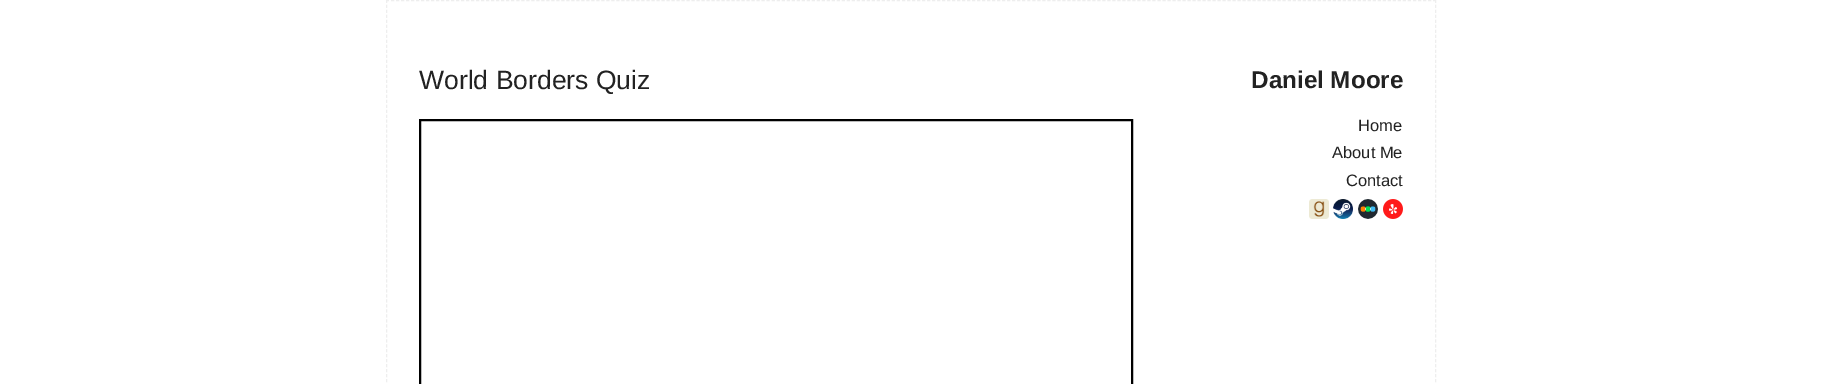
%!PS
<< /PageSize [1821 384] >> setpagedevice
/mt/moveto load def
/li/lineto load def
/st/stroke load def
/lw/setlinewidth load def
/co { dup -16 bitshift 255 div exch dup -8 bitshift 255 and 255 div exch 255 and 255 div setrgbcolor } def
/fn { [ exch dup neg 0 0 3 -1 roll 0 0 ] selectfont } def
/tx { co fn moveto show } def
/bx { co rectfill } def
/im { 5 dict begin { /h /w /y /x /name } { exch def } forall
  gsave x y translate w h scale
  w h 8 [w 0 0 h 0 0] name (r) file false 3 colorimage grestore end } def
0 384 translate 1 -1 scale
4 setmiterlimit
0 0 1821 384 16#FFFFFF bx
16#EEEEEE co
[3 2.01] 0 setdash
386 .5 mt 1436 .5 li st
[3 1.99] 0 setdash
1435.5 0 mt 1435.5 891 li st
386.5 0 mt 386.5 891 li st
16#000000 co
2 lw
[] 0 setdash
420 120 712 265 rectstroke
(media/1.raw) 1309 199 20 20 im
(media/2.raw) 1333 199 20 20 im
(media/3.raw) 1358 199 20 20 im
(media/4.raw) 1383 199 20 20 im
(World Borders Quiz) 419 89 /LiberationSans-Regular 26.5 16#222222 tx
(Daniel Moore) 1251 88 /LiberationSans-Bold 24.25 16#222222 tx
(Home) 1358 131 /LiberationSans-Regular 16.5 16#222222 tx
(About Me) 1332 158 /LiberationSans-Regular 16.5 16#222222 tx
(Contact) 1346 186 /LiberationSans-Regular 16.5 16#222222 tx
showpage
